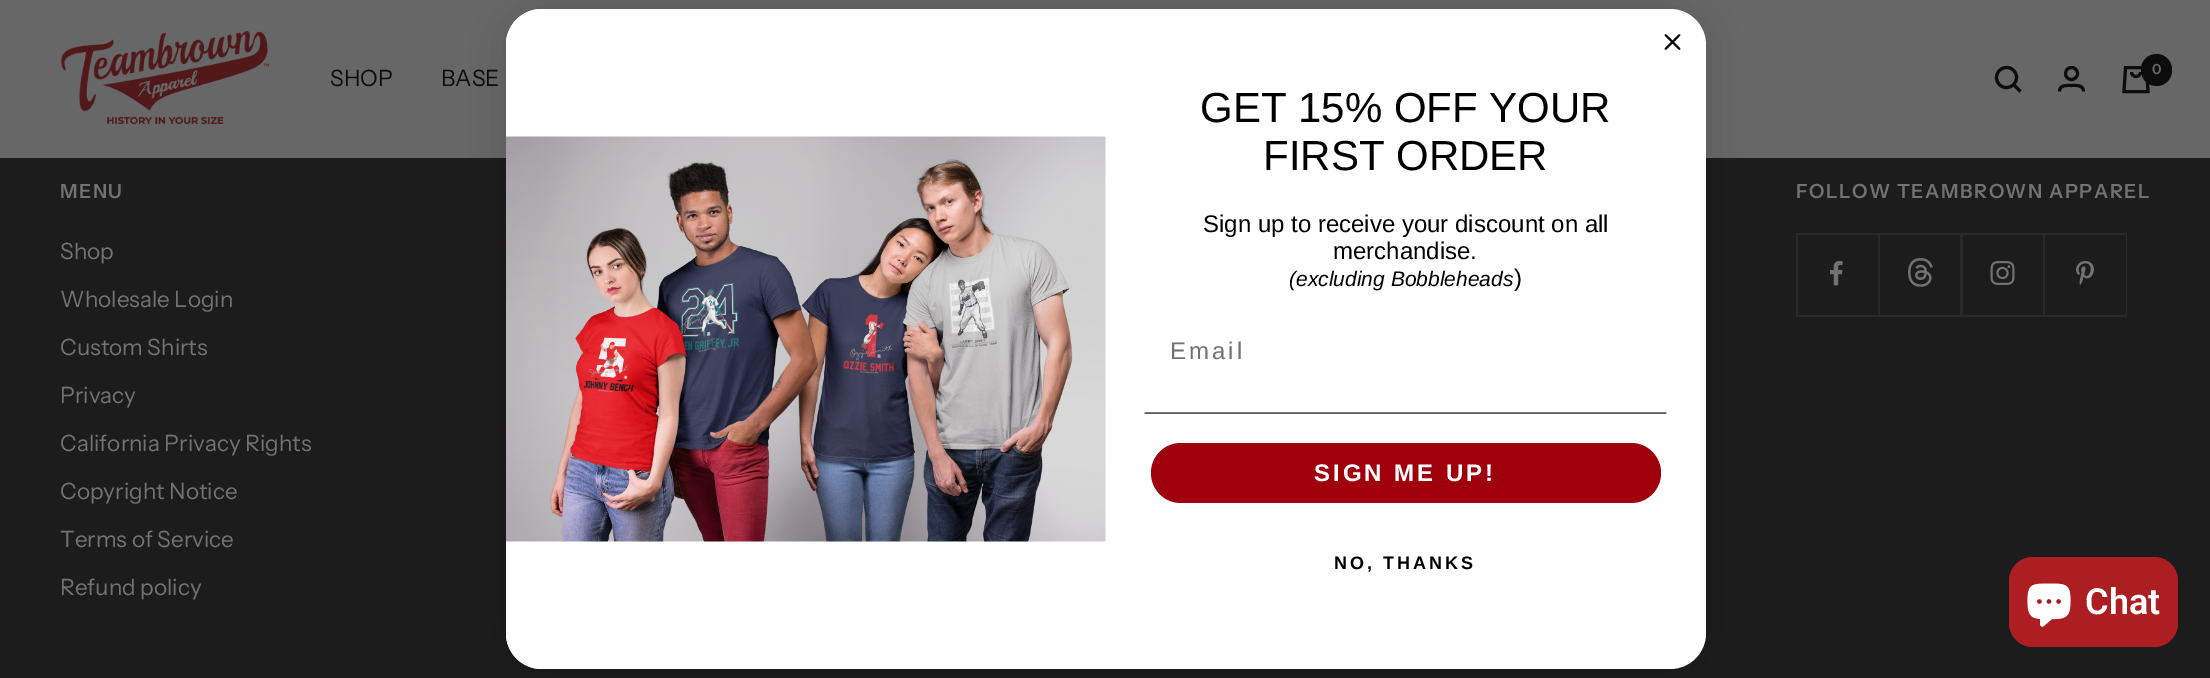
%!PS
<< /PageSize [2210 678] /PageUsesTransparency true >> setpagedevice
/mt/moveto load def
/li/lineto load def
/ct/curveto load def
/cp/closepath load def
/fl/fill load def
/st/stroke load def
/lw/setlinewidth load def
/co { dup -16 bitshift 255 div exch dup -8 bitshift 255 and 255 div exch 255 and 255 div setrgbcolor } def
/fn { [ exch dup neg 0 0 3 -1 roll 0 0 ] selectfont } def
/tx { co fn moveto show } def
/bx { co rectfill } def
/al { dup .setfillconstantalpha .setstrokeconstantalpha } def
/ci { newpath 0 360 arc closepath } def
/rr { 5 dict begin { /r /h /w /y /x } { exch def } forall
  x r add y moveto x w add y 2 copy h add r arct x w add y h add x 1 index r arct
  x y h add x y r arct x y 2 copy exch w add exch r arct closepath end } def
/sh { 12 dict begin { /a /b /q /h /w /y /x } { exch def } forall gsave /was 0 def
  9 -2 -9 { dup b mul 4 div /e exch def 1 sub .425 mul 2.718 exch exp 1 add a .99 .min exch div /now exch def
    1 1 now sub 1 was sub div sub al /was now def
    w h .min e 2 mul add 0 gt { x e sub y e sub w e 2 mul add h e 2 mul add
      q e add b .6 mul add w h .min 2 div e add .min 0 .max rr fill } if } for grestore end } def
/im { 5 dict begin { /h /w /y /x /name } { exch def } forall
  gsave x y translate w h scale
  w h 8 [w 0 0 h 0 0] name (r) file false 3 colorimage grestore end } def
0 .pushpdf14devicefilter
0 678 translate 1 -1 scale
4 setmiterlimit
0 0 2210 678 16#1C1C1C bx
0 0 2210 158 16#676767 bx
(media/1.raw) 60 31 210 94 im
16#0C0C0C co
3 lw
2013.5 84.5 mt 2023 75 2009 61 1999.5 70.5 ct 1990 80 2004 94 2013.5 84.5 ct cp 2013.5 84.5 mt 2020.5 91.5 li st
2071.5 73.5 6 ci st
2059.5 91.5 mt 2059.5 84.5 2067 85.5 2071.5 85.5 ct 2076 85.5 2083.5 84.5 2083.5 91.5 ct st
2125.5 67.5 mt 2146.5 67.5 li 2148 91.5 li 2124 91.5 li cp 2131.5 72 mt 2131.5 78 2140.5 78 2140.5 72 ct st
2141 54 31 32 15.5 rr fl
16#000000 co
506 9 1200 660 36 22.5 .15 sh
16#FFFFFF co
506 9 1200 660 36 rr fl
16#000000 co
1.8 lw
1 setlinecap
1 setlinejoin
1665.5 35 mt 1679.5 49 li 1665.5 49 mt 1679.5 35 li cp st
16#FFFFFF co
542 9 mt 1106 9 li 1106 669 li 542 669 li 522 669 506 653 506 633 ct 506 45 li 506 25 522 9 542 9 ct cp fl
(media/2.raw) 506 136 600 406 im
(media/3.raw) 1144 412 523 2 im
16#A0000C co
1151 443 510 60 30 rr fl
16#292929 co
1797 315 mt 1797 317 li 1880 317 li 1880 234 li 1878 234 li 1878 315 li cp fl
1796 315 1 2 16#292929 bx
1878 233 2 1 16#292929 bx
1796 233 82 2 16#292929 bx
1796 233 2 82 16#292929 bx
(media/4.raw) 1830 261 13 25 im
1880 315 mt 1880 317 li 1962 317 li 1962 234 li 1960 234 li 1960 315 li cp fl
1960 233 1 1 16#292929 bx
1878 233 83 2 16#292929 bx
(media/5.raw) 1908 258 25 29 im
1962 315 mt 1962 317 li 2045 317 li 2045 234 li 2043 234 li 2043 315 li cp fl
2043 233 2 1 16#292929 bx
1961 233 82 2 16#292929 bx
1962 233 1 82 16#292929 bx
(media/6.raw) 1990 261 25 24 im
2045 315 mt 2045 317 li 2127 317 li 2127 234 li 2126 234 li 2126 315 li cp fl
2126 233 1 1 16#292929 bx
2043 233 83 2 16#292929 bx
(media/7.raw) 2076 261 18 24 im
16#AD1E23 co
2009 557 169 90 24 rr fl
(media/8.raw) 2027 583 44 44 im
(SHOP) 330 86 /InstrumentSans-Regular 22.5 16#0C0C0C tx
(BASE) 441 86 /InstrumentSans-Regular 22.5 16#0C0C0C tx
(0) 2152 74 /InstrumentSans-SemiBold 14 16#676767 tx
(GET 15% OFF YOUR) 1200 122 /LiberationSans-Regular 42 16#000000 tx
(FIRST ORDER) 1263 170 /LiberationSans-Regular 42 16#000000 tx
(Sign up to receive your discount on all) 1203 232 /LiberationSans-Regular 24 16#000000 tx
(merchandise.) 1333 259 /LiberationSans-Regular 24 16#000000 tx
(\(excluding Bobbleheads) 1289 286 /LiberationSans-Italic 21 16#000000 tx
(\)) 1514 286 /LiberationSans-Regular 24 16#000000 tx
16#727272 co
1170 359 mt 3 0 (Email) ashow
/LiberationSans-Bold 24 fn
16#FFFFFF co
1314 481 mt 3 0 (SIGN ME UP!) ashow
/LiberationSans-Bold 18 fn
16#000000 co
1334 569 mt 3 0 (NO, THANKS) ashow
/InstrumentSans-SemiBold 19.5 fn
16#727272 co
60 198 mt 1.5 0 (MENU) ashow
(Shop) 60 259 /InstrumentSans-Regular 22.5 16#727272 tx
(Wholesale Login) 60 307 /InstrumentSans-Regular 22.5 16#727272 tx
(Custom Shirts) 60 355 /InstrumentSans-Regular 22.5 16#727272 tx
(Privacy) 60 403 /InstrumentSans-Regular 22.5 16#727272 tx
(California Privacy Rights) 60 451 /InstrumentSans-Regular 22.5 16#727272 tx
(Copyright Notice) 60 499 /InstrumentSans-Regular 22.5 16#727272 tx
(Terms of Service) 60 547 /InstrumentSans-Regular 22.5 16#727272 tx
(Refund policy) 60 595 /InstrumentSans-Regular 22.5 16#727272 tx
/InstrumentSans-SemiBold 19.5 fn
1796 198 mt 1.5 0 (FOLLOW TEAMBROWN APPAREL) ashow
(Chat) 2085 614 /Roboto-SemiBold 36 16#FFFFFF tx
.poppdf14devicefilter showpage
